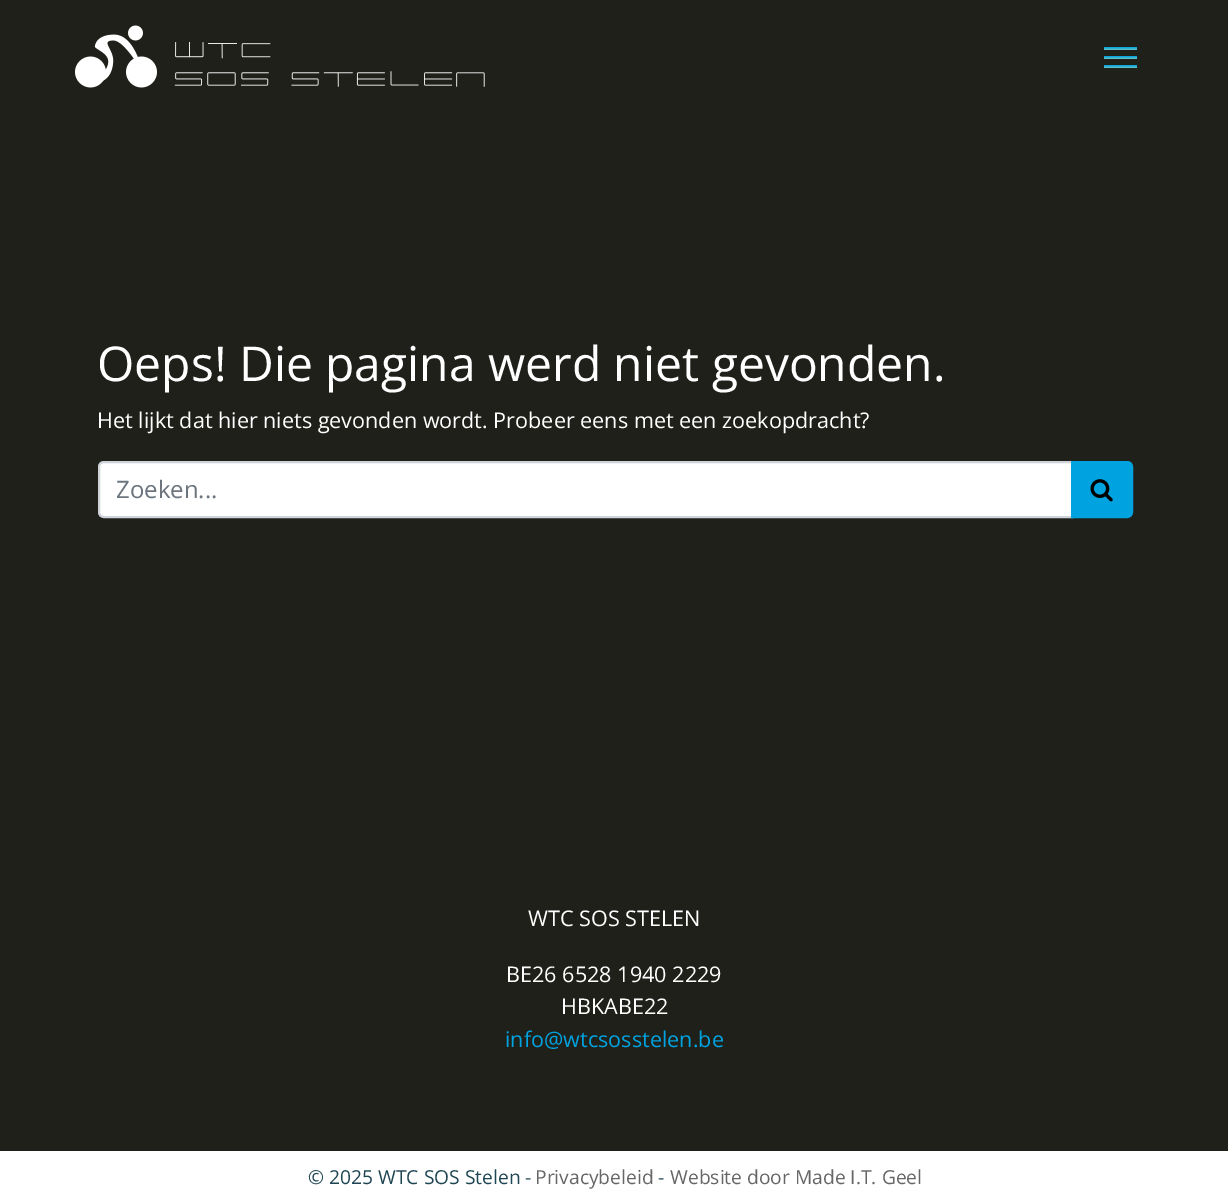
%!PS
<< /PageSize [1228 1197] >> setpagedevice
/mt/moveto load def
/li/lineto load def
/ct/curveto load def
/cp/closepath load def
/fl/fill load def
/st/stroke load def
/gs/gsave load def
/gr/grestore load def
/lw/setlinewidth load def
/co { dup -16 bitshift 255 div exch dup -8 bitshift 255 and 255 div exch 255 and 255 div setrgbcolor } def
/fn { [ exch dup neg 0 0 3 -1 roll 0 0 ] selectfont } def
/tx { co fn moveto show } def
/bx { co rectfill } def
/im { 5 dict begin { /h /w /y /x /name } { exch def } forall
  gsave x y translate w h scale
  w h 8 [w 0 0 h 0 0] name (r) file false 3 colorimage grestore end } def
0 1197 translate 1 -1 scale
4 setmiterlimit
0 0 1228 1197 16#1E2019 bx
(media/1.raw) 75 25 410 63 im
gs 1104 47 mt 1137 47 li 1137 50 li 1104 50 li cp clip newpath
<< /ShadingType 2 /ColorSpace /DeviceRGB /Coords [1121 47 1121 50] /Extend [true true] /Function << /FunctionType 2 /Domain [0 1] /C0 [0 .639 .878] /C1 [.349 .745 .788] /N 1 >> >> shfill gr
gs 1104 56 mt 1137 56 li 1137 59 li 1104 59 li cp clip newpath
<< /ShadingType 2 /ColorSpace /DeviceRGB /Coords [1121 56 1121 59] /Extend [true true] /Function << /FunctionType 2 /Domain [0 1] /C0 [0 .639 .878] /C1 [.349 .745 .788] /N 1 >> >> shfill gr
gs 1104 65 mt 1137 65 li 1137 68 li 1104 68 li cp clip newpath
<< /ShadingType 2 /ColorSpace /DeviceRGB /Coords [1121 65 1121 68] /Extend [true true] /Function << /FunctionType 2 /Domain [0 1] /C0 [0 .639 .878] /C1 [.349 .745 .788] /N 1 >> >> shfill gr
16#FFFFFF co
104 462 mt 1072 462 li 1072 517 li 104 517 li 101 517 99 515 99 512 ct 99 467 li 99 464 101 462 104 462 ct cp gs fl gr
16#CED4DA co
2 lw
st
16#00A3E0 co
1072 462 mt 1127 462 li 1130 462 1132 464 1132 467 ct 1132 512 li 1132 515 1130 517 1127 517 ct 1072 517 li cp gs fl gr
st
(media/2.raw) 1090 479 23 23 im
0 1151 1228 46 16#FFFFFF bx
(Oeps! Die pagina werd niet gevonden.) 97 381 /OpenSans-Regular 48 16#FFFFFF tx
(Het lijkt dat hier niets gevonden wordt. Probeer eens met een zoekopdracht?) 97 428 /OpenSans-Regular 21.6 16#FFFFFF tx
(Zoeken...) 116 498 /OpenSans-Regular 24 16#6C757D tx
(WTC SOS STELEN) 528 926 /OpenSans-Regular 21.6 16#FFFFFF tx
(BE26 6528 1940 2229) 506 982 /OpenSans-Regular 21.6 16#FFFFFF tx
(HBKABE22) 561 1014 /OpenSans-Regular 21.6 16#FFFFFF tx
(info@wtcsosstelen.be) 505 1047 /OpenSans-Regular 21.6 16#00A3E0 tx
(© 2025 WTC SOS Stelen -) 308 1184 /OpenSans-Regular 19.25 16#204654 tx
(Privacybeleid) 535 1184 /OpenSans-Regular 19.25 16#666666 tx
(-) 658 1184 /OpenSans-Regular 19.25 16#204654 tx
(Website door Made I.T. Geel) 670 1184 /OpenSans-Regular 19.25 16#666666 tx
showpage
